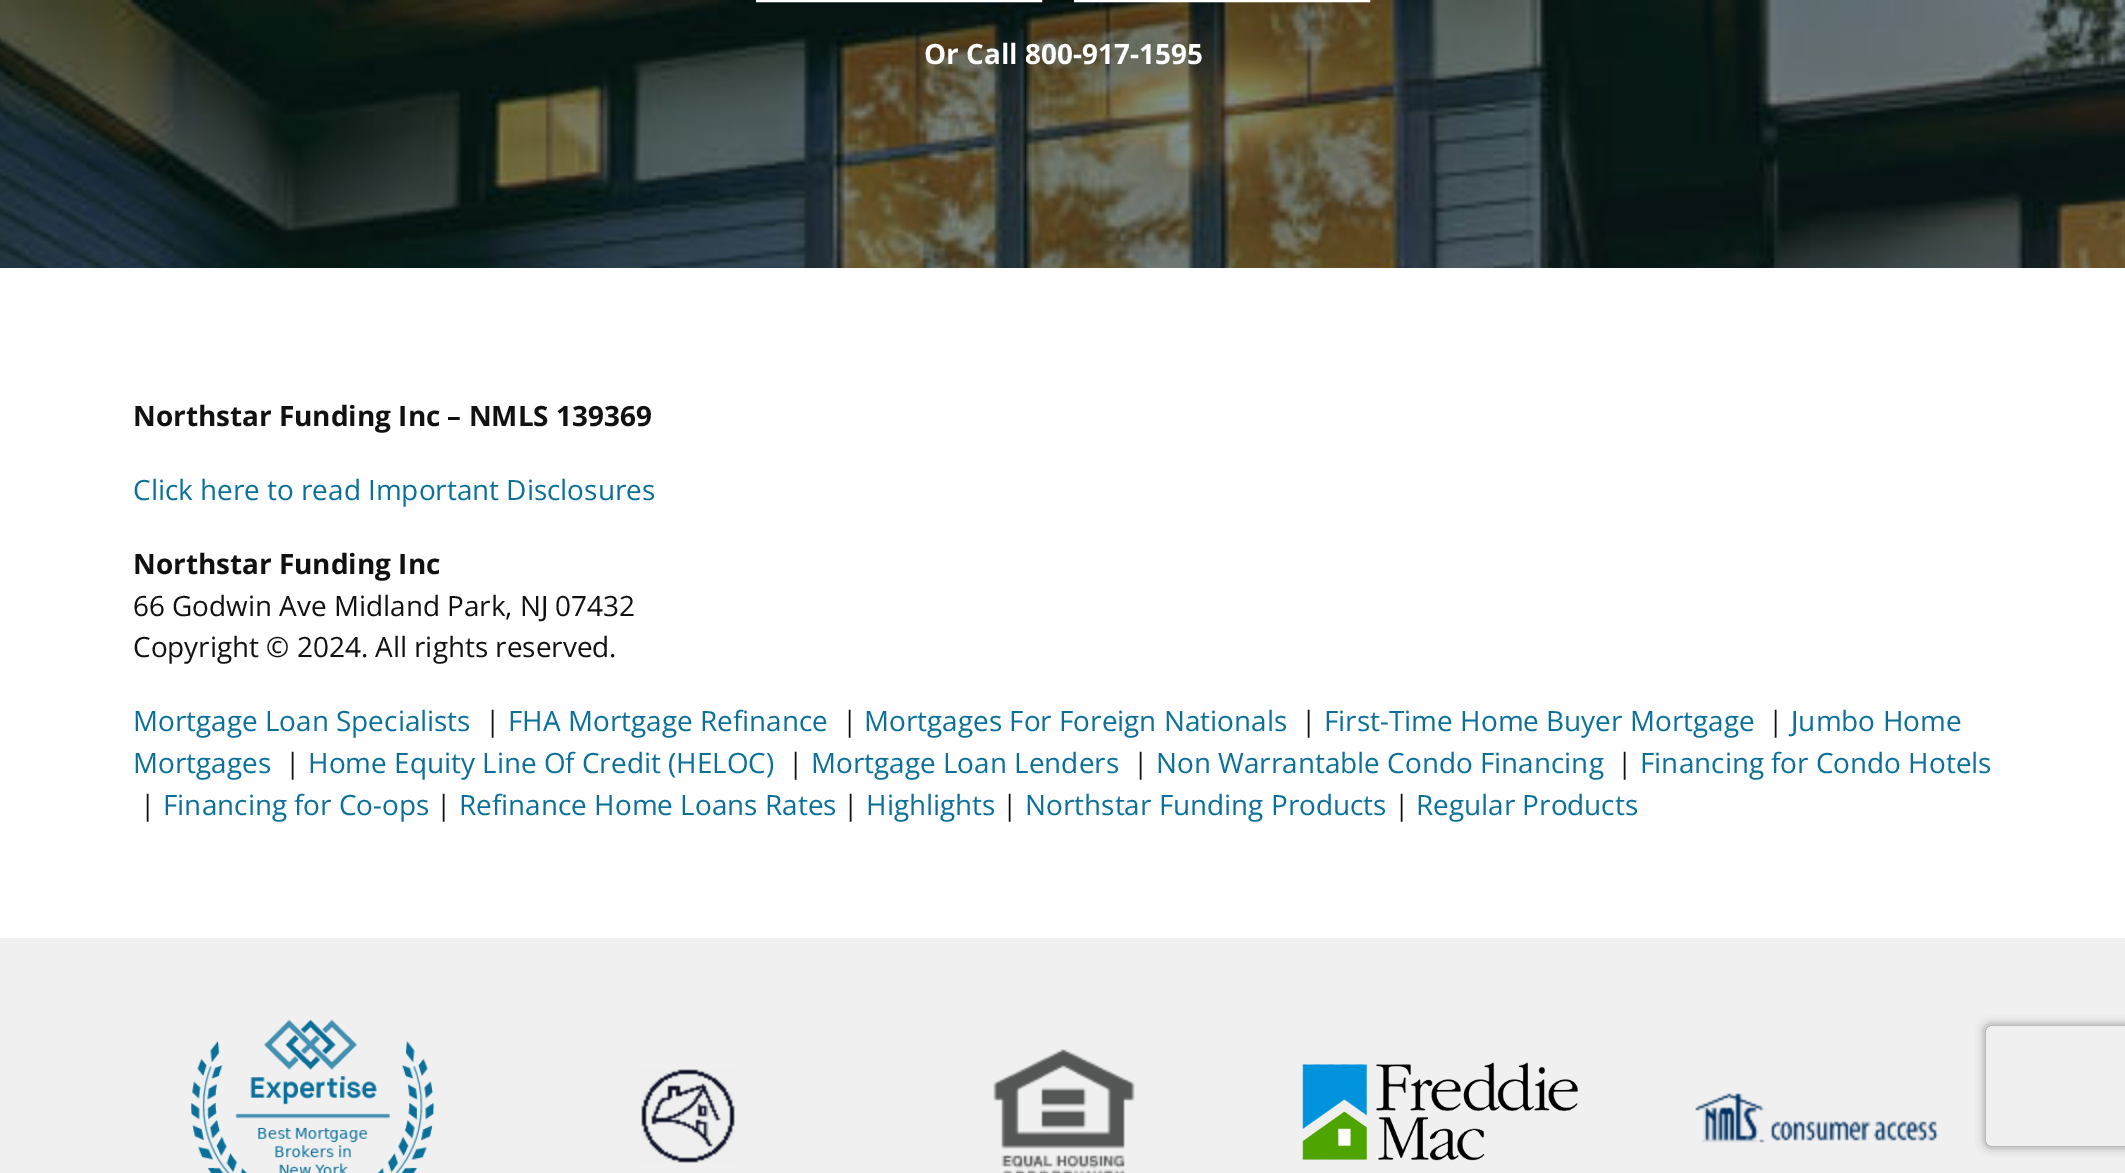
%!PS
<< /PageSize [2125 1173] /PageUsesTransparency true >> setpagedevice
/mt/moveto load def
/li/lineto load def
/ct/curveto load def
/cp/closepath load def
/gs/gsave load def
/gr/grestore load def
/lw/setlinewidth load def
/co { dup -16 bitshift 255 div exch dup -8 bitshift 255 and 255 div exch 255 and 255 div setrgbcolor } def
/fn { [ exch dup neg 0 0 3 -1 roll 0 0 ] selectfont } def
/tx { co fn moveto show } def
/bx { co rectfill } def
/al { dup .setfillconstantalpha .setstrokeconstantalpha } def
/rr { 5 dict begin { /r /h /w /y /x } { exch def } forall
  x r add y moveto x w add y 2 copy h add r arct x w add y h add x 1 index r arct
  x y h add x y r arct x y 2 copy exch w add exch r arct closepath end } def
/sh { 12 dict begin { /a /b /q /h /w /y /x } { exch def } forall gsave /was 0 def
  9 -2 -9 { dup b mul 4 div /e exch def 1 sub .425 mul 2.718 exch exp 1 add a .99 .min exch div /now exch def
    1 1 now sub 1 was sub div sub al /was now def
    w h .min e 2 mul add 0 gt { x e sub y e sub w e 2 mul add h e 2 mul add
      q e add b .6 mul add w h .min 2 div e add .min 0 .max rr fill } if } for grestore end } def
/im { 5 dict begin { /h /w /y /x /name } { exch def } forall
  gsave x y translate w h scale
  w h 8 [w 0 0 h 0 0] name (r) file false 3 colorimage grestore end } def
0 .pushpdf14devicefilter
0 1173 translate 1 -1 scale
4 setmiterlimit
0 0 2125 1173 16#FFFFFF bx
(media/1.raw) 0 0 2125 268 im
4 lw
758 -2 282 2 rectstroke
1076 -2 292 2 rectstroke
0 938 2125 235 16#F0F0F0 bx
(media/2.raw) 191 1019 244 154 im
(media/3.raw) 640 1068 96 96 im
(media/4.raw) 993 1049 142 124 im
(media/5.raw) 1302 1062 276 99 im
(media/6.raw) 1695 1093 244 50 im
gs
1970 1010 mt 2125 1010 li 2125 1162 li 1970 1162 li cp 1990 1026 mt 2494 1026 li 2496 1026 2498 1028 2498 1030 ct 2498 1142 li 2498 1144 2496 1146 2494 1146 ct 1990 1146 li 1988 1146 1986 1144 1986 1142 ct 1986 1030 li 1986 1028 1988 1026 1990 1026 ct cp eoclip newpath
16#808080 co
1986 1026 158 120 4 5 1 sh
gr
(Or Call 800-917-1595) 924 64 /OpenSans-Bold 27.9 16#FFFFFF tx
(Northstar Funding Inc – NMLS 139369) 133 426 /OpenSans-Bold 27.9 16#111111 tx
(Click here to read Important Disclosures) 133 500 /OpenSans-Regular 27.9 16#0A6F99 tx
(Northstar Funding Inc) 133 574 /OpenSans-Bold 27.9 16#111111 tx
(66 Godwin Ave Midland Park, NJ 07432) 133 616 /OpenSans-Regular 27.9 16#111111 tx
(Copyright © 2024. All rights reserved.) 133 657 /OpenSans-Regular 27.9 16#111111 tx
(Mortgage Loan Specialists) 133 731 /OpenSans-Regular 27.9 16#0A6F99 tx
(|) 485 731 /OpenSans-Regular 27.9 16#111111 tx
(FHA Mortgage Refinance) 508 731 /OpenSans-Regular 27.9 16#0A6F99 tx
(|) 842 731 /OpenSans-Regular 27.9 16#111111 tx
(Mortgages For Foreign Nationals) 864 731 /OpenSans-Regular 27.9 16#0A6F99 tx
(|) 1301 731 /OpenSans-Regular 27.9 16#111111 tx
(First-Time Home Buyer Mortgage) 1324 731 /OpenSans-Regular 27.9 16#0A6F99 tx
(|) 1768 731 /OpenSans-Regular 27.9 16#111111 tx
(Jumbo Home) 1791 731 /OpenSans-Regular 27.9 16#0A6F99 tx
(Mortgages) 133 773 /OpenSans-Regular 27.9 16#0A6F99 tx
(|) 285 773 /OpenSans-Regular 27.9 16#111111 tx
(Home Equity Line Of Credit \(HELOC\)) 308 773 /OpenSans-Regular 27.9 16#0A6F99 tx
(|) 788 773 /OpenSans-Regular 27.9 16#111111 tx
(Mortgage Loan Lenders) 811 773 /OpenSans-Regular 27.9 16#0A6F99 tx
(|) 1133 773 /OpenSans-Regular 27.9 16#111111 tx
(Non Warrantable Condo Financing) 1156 773 /OpenSans-Regular 27.9 16#0A6F99 tx
(|) 1617 773 /OpenSans-Regular 27.9 16#111111 tx
(Financing for Condo Hotels) 1640 773 /OpenSans-Regular 27.9 16#0A6F99 tx
(|) 140 815 /OpenSans-Regular 27.9 16#111111 tx
(Financing for Co-ops) 163 815 /OpenSans-Regular 27.9 16#0A6F99 tx
(|) 436 815 /OpenSans-Regular 27.9 16#111111 tx
(Refinance Home Loans Rates) 459 815 /OpenSans-Regular 27.9 16#0A6F99 tx
(|) 843 815 /OpenSans-Regular 27.9 16#111111 tx
(Highlights) 866 815 /OpenSans-Regular 27.9 16#0A6F99 tx
(|) 1002 815 /OpenSans-Regular 27.9 16#111111 tx
(Northstar Funding Products) 1025 815 /OpenSans-Regular 27.9 16#0A6F99 tx
(|) 1394 815 /OpenSans-Regular 27.9 16#111111 tx
(Regular Products) 1416 815 /OpenSans-Regular 27.9 16#0A6F99 tx
.poppdf14devicefilter showpage
